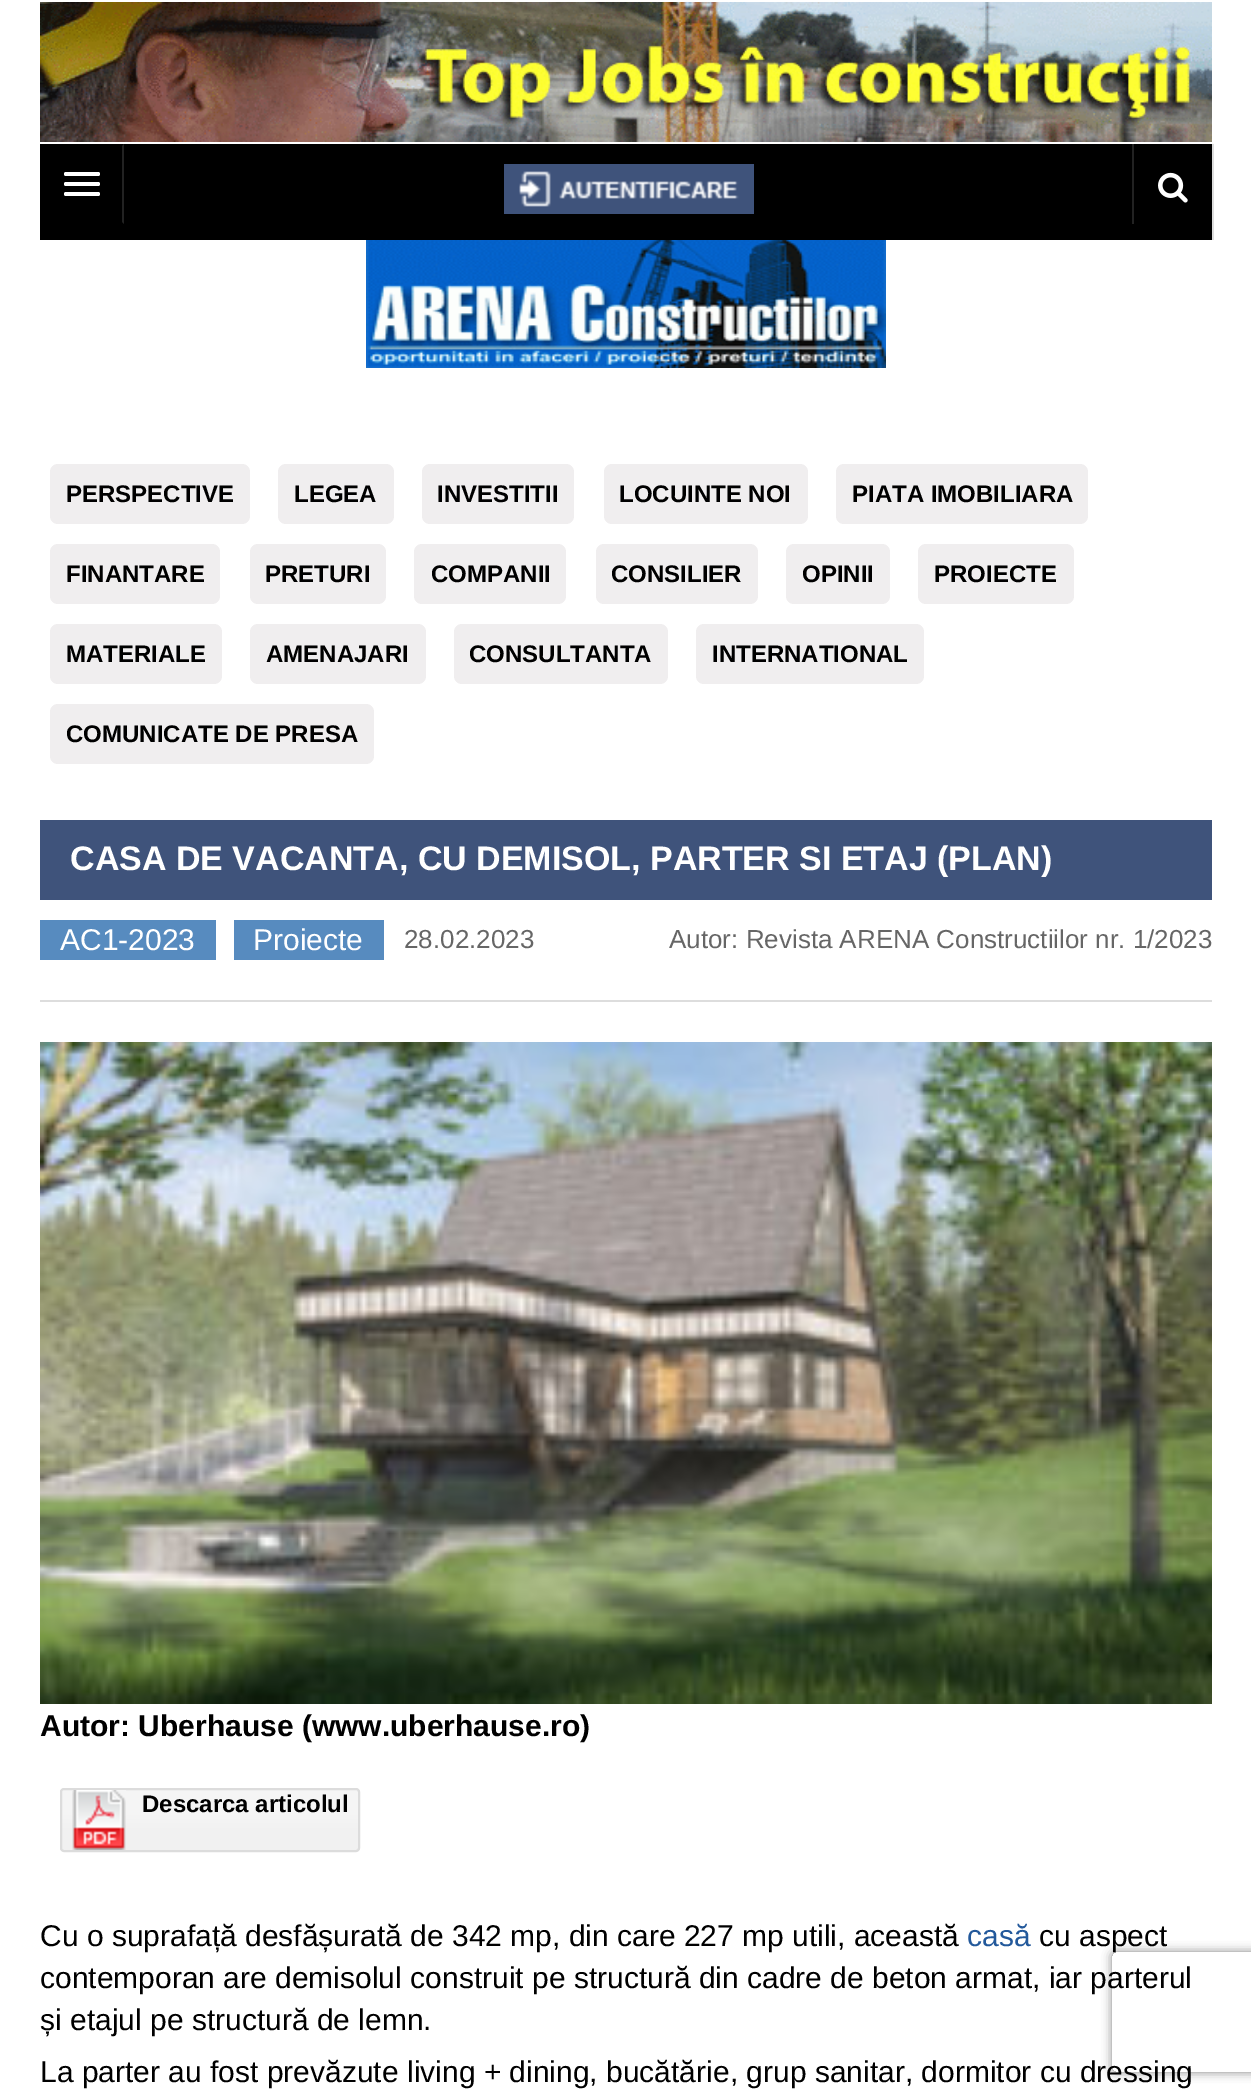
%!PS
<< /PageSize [1251 2100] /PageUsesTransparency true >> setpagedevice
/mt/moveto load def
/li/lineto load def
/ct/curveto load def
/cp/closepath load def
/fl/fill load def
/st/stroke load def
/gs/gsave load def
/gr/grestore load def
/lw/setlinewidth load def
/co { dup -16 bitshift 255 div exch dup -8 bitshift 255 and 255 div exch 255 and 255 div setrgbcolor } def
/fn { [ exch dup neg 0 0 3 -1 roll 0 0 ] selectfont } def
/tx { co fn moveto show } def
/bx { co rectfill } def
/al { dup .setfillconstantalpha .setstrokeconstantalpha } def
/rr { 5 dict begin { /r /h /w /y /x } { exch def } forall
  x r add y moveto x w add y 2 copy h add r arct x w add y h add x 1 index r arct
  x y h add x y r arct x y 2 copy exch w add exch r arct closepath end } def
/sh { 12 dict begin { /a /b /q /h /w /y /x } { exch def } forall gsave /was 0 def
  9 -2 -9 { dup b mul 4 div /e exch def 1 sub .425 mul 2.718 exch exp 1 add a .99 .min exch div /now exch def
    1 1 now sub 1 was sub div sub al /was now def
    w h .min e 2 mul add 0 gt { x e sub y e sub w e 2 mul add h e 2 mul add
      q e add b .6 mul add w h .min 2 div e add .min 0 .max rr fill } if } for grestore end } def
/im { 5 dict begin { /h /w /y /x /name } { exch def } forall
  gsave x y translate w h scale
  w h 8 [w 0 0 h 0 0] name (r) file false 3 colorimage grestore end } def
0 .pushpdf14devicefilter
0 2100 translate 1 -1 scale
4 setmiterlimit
0 0 1251 2100 16#FFFFFF bx
(media/1.raw) 40 2 1172 140 im
1212 144 2 96 16#DDDDDD bx
40 144 1172 96 16#000000 bx
16#222222 co
124 144 mt 124 224 li 122 222 li 122 146 li cp fl
16#FFFFFF co
64 172 36 4 2 rr fl
64 182 36 4 2 rr fl
64 192 36 4 2 rr fl
(media/2.raw) 504 164 250 50 im
1132 144 2 80 16#222222 bx
(media/3.raw) 1158 172 30 31 im
(media/4.raw) 366 240 520 128 im
16#F0EEEF co
50 464 200 60 8 rr fl
278 464 116 60 8 rr fl
422 464 152 60 8 rr fl
604 464 204 60 8 rr fl
836 464 252 60 8 rr fl
50 544 170 60 8 rr fl
250 544 136 60 8 rr fl
414 544 152 60 8 rr fl
596 544 162 60 8 rr fl
786 544 104 60 8 rr fl
918 544 156 60 8 rr fl
50 624 172 60 8 rr fl
250 624 176 60 8 rr fl
454 624 214 60 8 rr fl
696 624 228 60 8 rr fl
50 704 324 60 8 rr fl
40 820 1172 80 16#3F537B bx
40 1000 1172 2 16#DDDDDD bx
40 920 176 40 16#578BBF bx
234 920 150 40 16#578BBF bx
(media/5.raw) 40 1042 1172 662 im
gs
60 1788 300 64 4 rr clip newpath
gs 60 1790 mt 360 1790 li 360 1850 li 60 1850 li cp clip newpath
<< /ShadingType 2 /ColorSpace /DeviceRGB /Coords [62 1814 62 1832] /Extend [true true] /Function << /FunctionType 2 /Domain [0 1] /C0 [.961 .961 .961] /C1 [.945 .945 .945] /N 1 >> >> shfill gr
gr
16#DCDCDC co
2 lw
61 1789 298 62 3 rr st
(media/6.raw) 72 1790 54 60 im
gs
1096 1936 mt 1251 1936 li 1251 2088 li 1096 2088 li cp 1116 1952 mt 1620 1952 li 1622 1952 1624 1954 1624 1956 ct 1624 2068 li 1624 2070 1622 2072 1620 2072 ct 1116 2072 li 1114 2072 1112 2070 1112 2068 ct 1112 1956 li 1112 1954 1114 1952 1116 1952 ct cp eoclip newpath
16#808080 co
1112 1952 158 120 4 5 1 sh
gr
(PERSPECTIVE) 66 502 /LiberationSans-Bold 24 16#000000 tx
(LEGEA) 294 502 /LiberationSans-Bold 24 16#000000 tx
(INVESTITII) 437 502 /LiberationSans-Bold 24 16#000000 tx
(LOCUINTE NOI) 619 502 /LiberationSans-Bold 24 16#000000 tx
(PIATA IMOBILIARA) 852 502 /LiberationSans-Bold 24 16#000000 tx
(FINANTARE) 66 582 /LiberationSans-Bold 24 16#000000 tx
(PRETURI) 265 582 /LiberationSans-Bold 24 16#000000 tx
(COMPANII) 431 582 /LiberationSans-Bold 24 16#000000 tx
(CONSILIER) 611 582 /LiberationSans-Bold 24 16#000000 tx
(OPINII) 802 582 /LiberationSans-Bold 24 16#000000 tx
(PROIECTE) 934 582 /LiberationSans-Bold 24 16#000000 tx
(MATERIALE) 66 662 /LiberationSans-Bold 24 16#000000 tx
(AMENAJARI) 266 662 /LiberationSans-Bold 24 16#000000 tx
(CONSULTANTA) 469 662 /LiberationSans-Bold 24 16#000000 tx
(INTERNATIONAL) 712 662 /LiberationSans-Bold 24 16#000000 tx
(COMUNICATE DE PRESA) 66 742 /LiberationSans-Bold 24 16#000000 tx
(CASA DE VACANTA, CU DEMISOL, PARTER SI ETAJ \(PLAN\)) 70 870 /LiberationSans-Bold 34 16#FFFFFF tx
(AC1-2023) 60 950 /LiberationSans-Regular 30 16#FFFFFF tx
(Proiecte) 253 950 /LiberationSans-Regular 30 16#FFFFFF tx
(28.02.2023) 404 948 /LiberationSans-Regular 26 16#666666 tx
(Autor: Revista ARENA Constructiilor nr. 1/2023) 669 948 /LiberationSans-Regular 26 16#666666 tx
(Autor: Uberhause \(www.uberhause.ro\)) 40 1736 /LiberationSans-Bold 30 16#000000 tx
(Descarca articolul) 142 1812 /LiberationSans-Bold 24 16#000000 tx
(Cu o suprafață desfășurată de 342 mp, din care 227 mp utili, această) 40 1946 /LiberationSans-Regular 30 16#000000 tx
(casă) 967 1946 /LiberationSans-Regular 30 16#23599B tx
(cu aspect) 1039 1946 /LiberationSans-Regular 30 16#000000 tx
(contemporan are demisolul construit pe structură din cadre de beton armat, iar parterul) 40 1988 /LiberationSans-Regular 30 16#000000 tx
(și etajul pe structură de lemn.) 40 2030 /LiberationSans-Regular 30 16#000000 tx
(La parter au fost prevăzute living + dining, bucătărie, grup sanitar, dormitor cu dressing) 40 2082 /LiberationSans-Regular 30 16#000000 tx
.poppdf14devicefilter showpage
